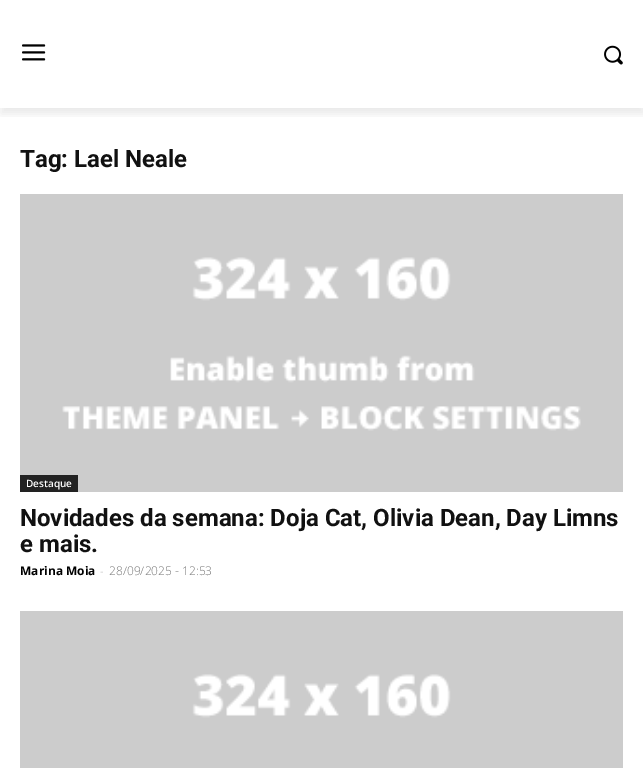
%!PS
<< /PageSize [643 768] /PageUsesTransparency true >> setpagedevice
/gs/gsave load def
/gr/grestore load def
/co { dup -16 bitshift 255 div exch dup -8 bitshift 255 and 255 div exch 255 and 255 div setrgbcolor } def
/fn { [ exch dup neg 0 0 3 -1 roll 0 0 ] selectfont } def
/tx { co fn moveto show } def
/bx { co rectfill } def
/al { dup .setfillconstantalpha .setstrokeconstantalpha } def
/rr { 5 dict begin { /r /h /w /y /x } { exch def } forall
  x r add y moveto x w add y 2 copy h add r arct x w add y h add x 1 index r arct
  x y h add x y r arct x y 2 copy exch w add exch r arct closepath end } def
/sh { 12 dict begin { /a /b /q /h /w /y /x } { exch def } forall gsave /was 0 def
  9 -2 -9 { dup b mul 4 div /e exch def 1 sub .425 mul 2.718 exch exp 1 add a .99 .min exch div /now exch def
    1 1 now sub 1 was sub div sub al /was now def
    w h .min e 2 mul add 0 gt { x e sub y e sub w e 2 mul add h e 2 mul add
      q e add b .6 mul add w h .min 2 div e add .min 0 .max rr fill } if } for grestore end } def
/im { 5 dict begin { /h /w /y /x /name } { exch def } forall
  gsave x y translate w h scale
  w h 8 [w 0 0 h 0 0] name (r) file false 3 colorimage grestore end } def
0 .pushpdf14devicefilter
0 768 translate 1 -1 scale
4 setmiterlimit
0 0 643 768 16#FFFFFF bx
(media/1.raw) 22 44 24 17 im
(media/2.raw) 604 45 19 20 im
gs
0 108 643 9 rectclip
16#000000 co
1 6 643 108 0 4 .08 sh
gr
(media/3.raw) 20 194 603 298 im
20 475 58 17 16#222222 bx
(media/4.raw) 20 611 603 157 im
(Tag: Lael Neale) 20 167 /Roboto-Bold 24 16#111111 tx
(Destaque) 26 487 /OpenSans-SemiBold 10 16#FFFFFF tx
(Novidades da semana: Doja Cat, Olivia Dean, Day Limns) 20 526 /Roboto-Bold 24 16#111111 tx
(e mais.) 20 552 /Roboto-Bold 24 16#111111 tx
(Marina Moia) 20 575 /OpenSans-Bold 12 16#000000 tx
(-) 100 575 /OpenSans-Regular 11 16#CCCCCC tx
(28/09/2025 - 12:53) 109 575 /OpenSans-Light 12 16#767676 tx
.poppdf14devicefilter showpage
